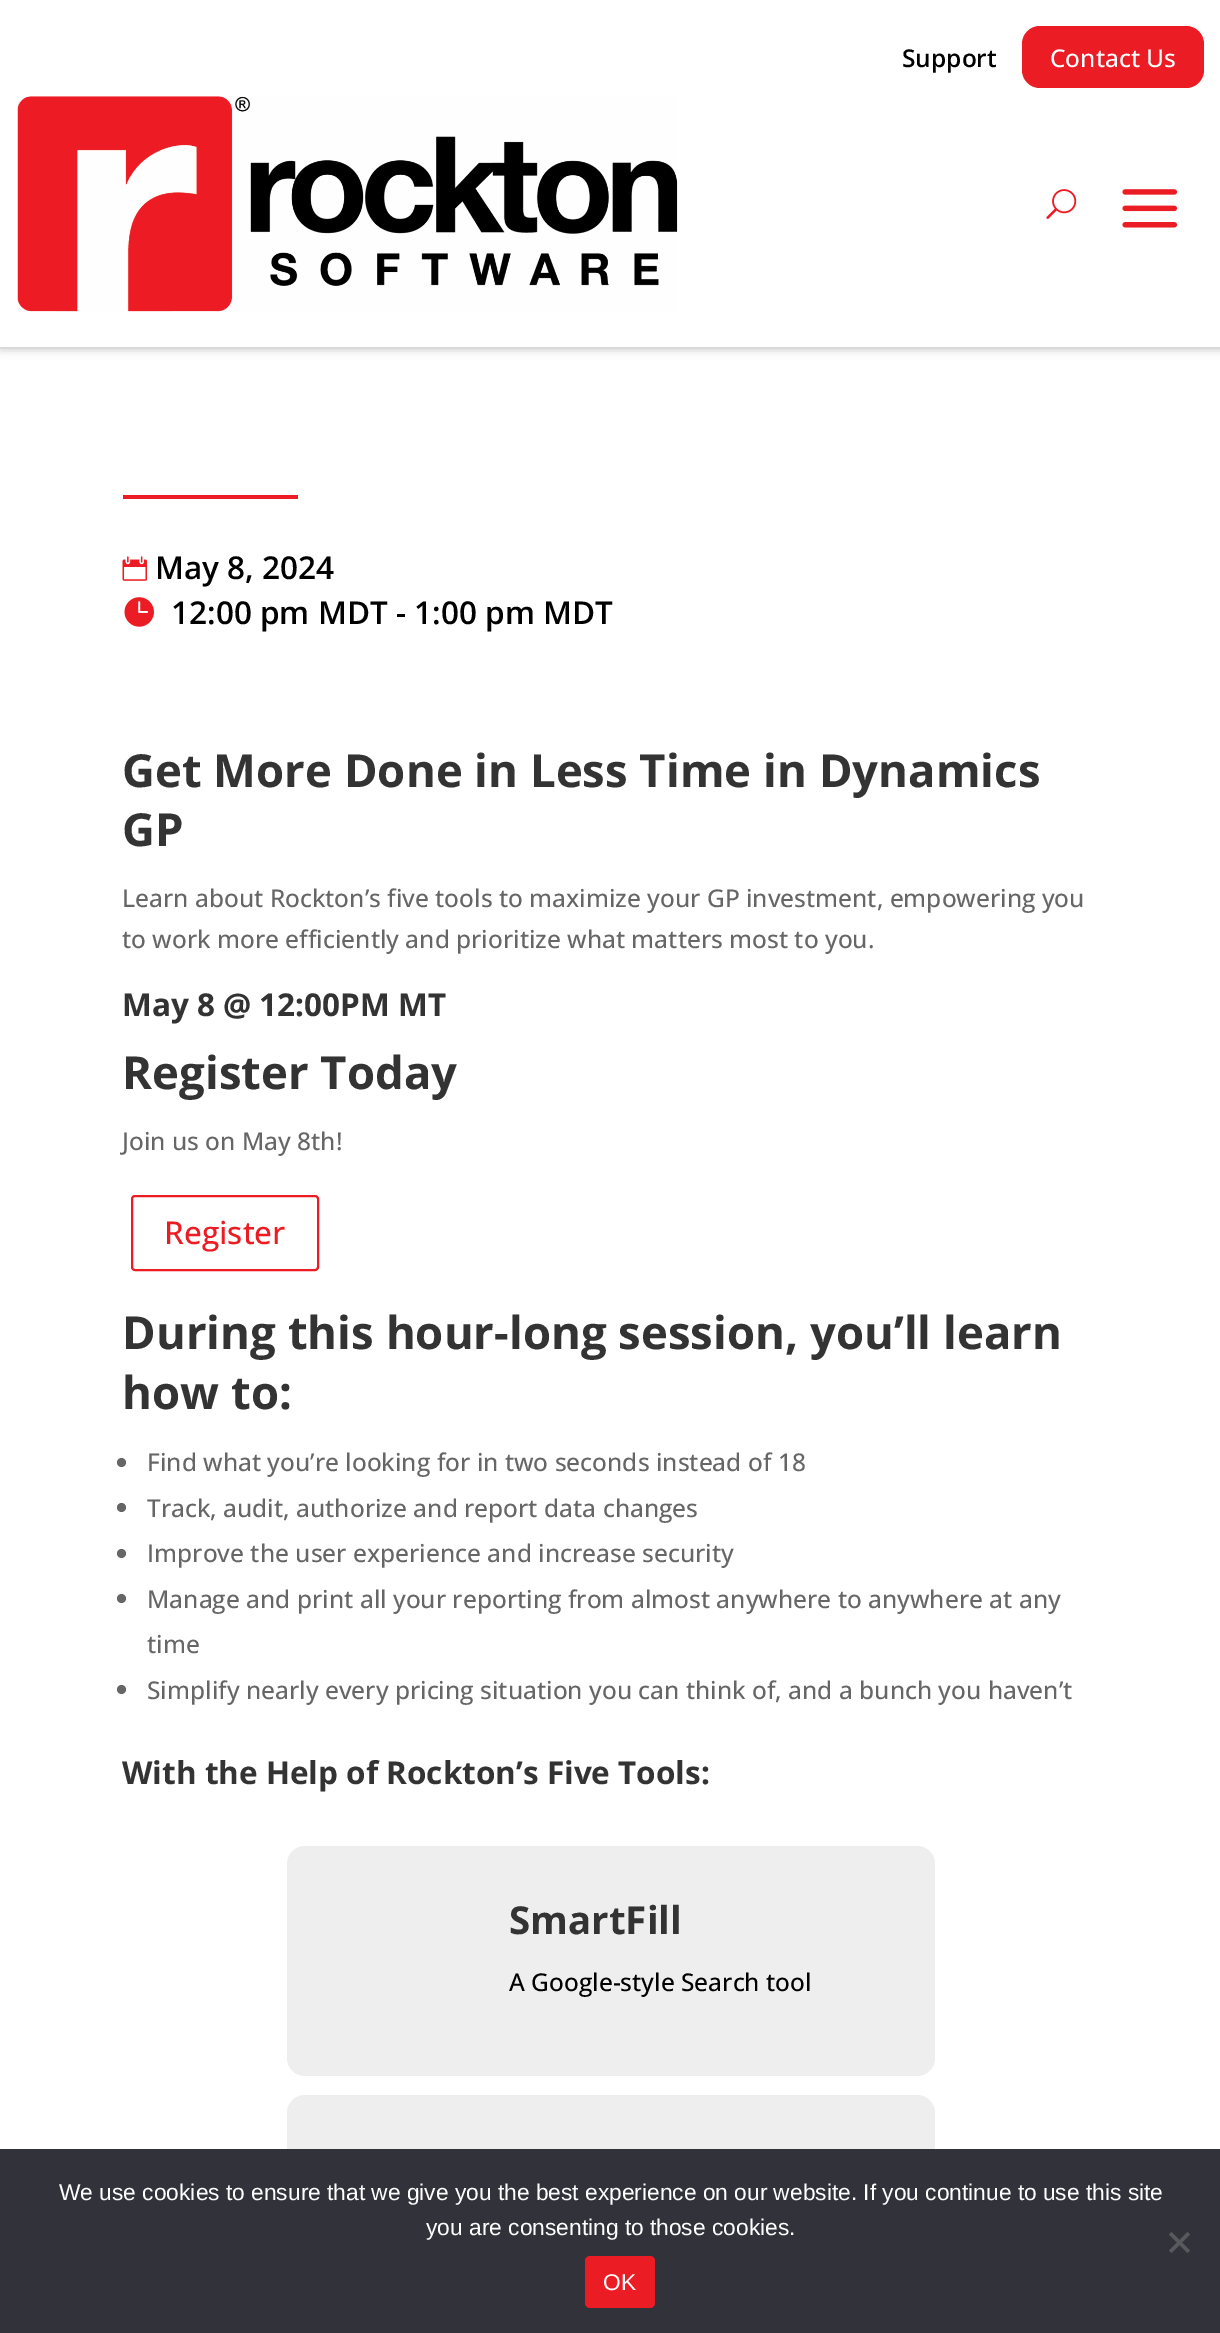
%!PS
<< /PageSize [1220 2333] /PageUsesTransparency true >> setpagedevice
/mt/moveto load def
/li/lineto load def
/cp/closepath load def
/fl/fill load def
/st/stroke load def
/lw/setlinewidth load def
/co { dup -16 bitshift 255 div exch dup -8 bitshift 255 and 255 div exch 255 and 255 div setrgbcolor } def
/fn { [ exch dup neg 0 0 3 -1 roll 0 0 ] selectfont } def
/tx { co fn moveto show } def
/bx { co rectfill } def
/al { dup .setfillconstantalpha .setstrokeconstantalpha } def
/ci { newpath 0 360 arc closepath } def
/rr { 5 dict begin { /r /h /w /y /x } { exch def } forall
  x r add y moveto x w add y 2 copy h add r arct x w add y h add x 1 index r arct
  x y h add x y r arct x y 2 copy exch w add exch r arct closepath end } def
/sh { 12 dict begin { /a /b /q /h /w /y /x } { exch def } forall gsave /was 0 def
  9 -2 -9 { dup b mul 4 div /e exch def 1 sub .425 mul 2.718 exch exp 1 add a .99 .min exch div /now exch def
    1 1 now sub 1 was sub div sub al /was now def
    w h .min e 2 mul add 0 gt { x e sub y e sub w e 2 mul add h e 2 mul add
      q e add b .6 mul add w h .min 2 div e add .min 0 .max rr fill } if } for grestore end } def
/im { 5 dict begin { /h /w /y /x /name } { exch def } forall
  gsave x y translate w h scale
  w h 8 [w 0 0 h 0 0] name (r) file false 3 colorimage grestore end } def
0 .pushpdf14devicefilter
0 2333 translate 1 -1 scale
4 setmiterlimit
0 0 1220 2333 16#FFFFFF bx
16#000000 co
0 2 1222 346 0 5 .3 sh
0 0 1220 347 16#FFFFFF bx
16#EC1C24 co
1022 26 182 62 18 rr fl
(media/1.raw) 17 96 661 216 im
(media/2.raw) 1046 189 31 30 im
(media/3.raw) 1122 189 56 39 im
123 495 175 4 16#EC1C24 bx
(media/4.raw) 122 556 25 25 im
(media/5.raw) 124 597 30 30 im
2 lw
132 1196 186 74 3 rr st
16#666666 co
121.5 1462.5 4.5 ci fl
121.5 1507.5 4.5 ci fl
121.5 1553.5 4.5 ci fl
121.5 1598.5 4.5 ci fl
121.5 1689.5 4.5 ci fl
16#EEEEEE co
287 1846 648 230 18 rr fl
287 2095 648 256 18 rr fl
0 2149 1220 184 16#32323A bx
16#59595D co
1187.5 2232 mt 1190 2234.5 li 1171.5 2253 li 1169 2250.5 li cp fl
1169 2234.5 mt 1171.5 2232 li 1190 2250.5 li 1187.5 2253 li cp fl
16#EC1C24 co
585 2256 70 52 5 rr fl
(Support) 902 67 /OpenSans-SemiBold 24.5 16#000000 tx
(Contact Us) 1050 67 /OpenSans-Medium 24.5 16#FFFFFF tx
(May 8, 2024) 155 579 /OpenSans-SemiBold 31.5 16#000000 tx
(12:00 pm MDT - 1:00 pm MDT) 171 624 /OpenSans-SemiBold 31.5 16#000000 tx
(Get More Done in Less Time in Dynamics) 122 787 /OpenSans-Bold 45.5 16#333333 tx
(GP) 122 846 /OpenSans-Bold 45.5 16#333333 tx
(Learn about Rockton’s five tools to maximize your GP investment, empowering you) 122 907 /OpenSans-Medium 24.5 16#666666 tx
(to work more efficiently and prioritize what matters most to you.) 122 948 /OpenSans-Medium 24.5 16#666666 tx
(May 8 @ 12:00PM MT) 122 1016 /OpenSans-Bold 31.5 16#333333 tx
(Register Today) 122 1089 /OpenSans-Bold 45.5 16#333333 tx
(Join us on May 8th!) 122 1150 /OpenSans-Medium 24.5 16#666666 tx
(Register) 164 1244 /OpenSans-Medium 31.5 16#EC1C24 tx
(During this hour-long session, you’ll learn) 122 1349 /OpenSans-Bold 45.5 16#333333 tx
(how to:) 122 1409 /OpenSans-Bold 45.5 16#333333 tx
(Find what you’re looking for in two seconds instead of 18) 147 1471 /OpenSans-Medium 24.5 16#666666 tx
(Track, audit, authorize and report data changes) 147 1517 /OpenSans-Medium 24.5 16#666666 tx
(Improve the user experience and increase security) 147 1562 /OpenSans-Medium 24.5 16#666666 tx
(Manage and print all your reporting from almost anywhere to anywhere at any) 147 1608 /OpenSans-Medium 24.5 16#666666 tx
(time) 147 1653 /OpenSans-Medium 24.5 16#666666 tx
(Simplify nearly every pricing situation you can think of, and a bunch you haven’t) 147 1699 /OpenSans-Medium 24.5 16#666666 tx
(With the Help of Rockton’s Five Tools:) 122 1784 /OpenSans-Bold 31.5 16#333333 tx
(SmartFill) 509 1934 /OpenSans-Bold 38.5 16#333333 tx
(A Google-style Search tool) 509 1991 /OpenSans-Medium 24.5 16#000000 tx
(We use cookies to ensure that we give you the best experience on our website. If you continue to use this site) 59 2200 /LiberationSans-Regular 22.75 16#FFFFFF tx
(you are consenting to those cookies.) 426 2235 /LiberationSans-Regular 22.75 16#FFFFFF tx
(OK) 603 2290 /LiberationSans-Regular 22.75 16#FFFFFF tx
.poppdf14devicefilter showpage
